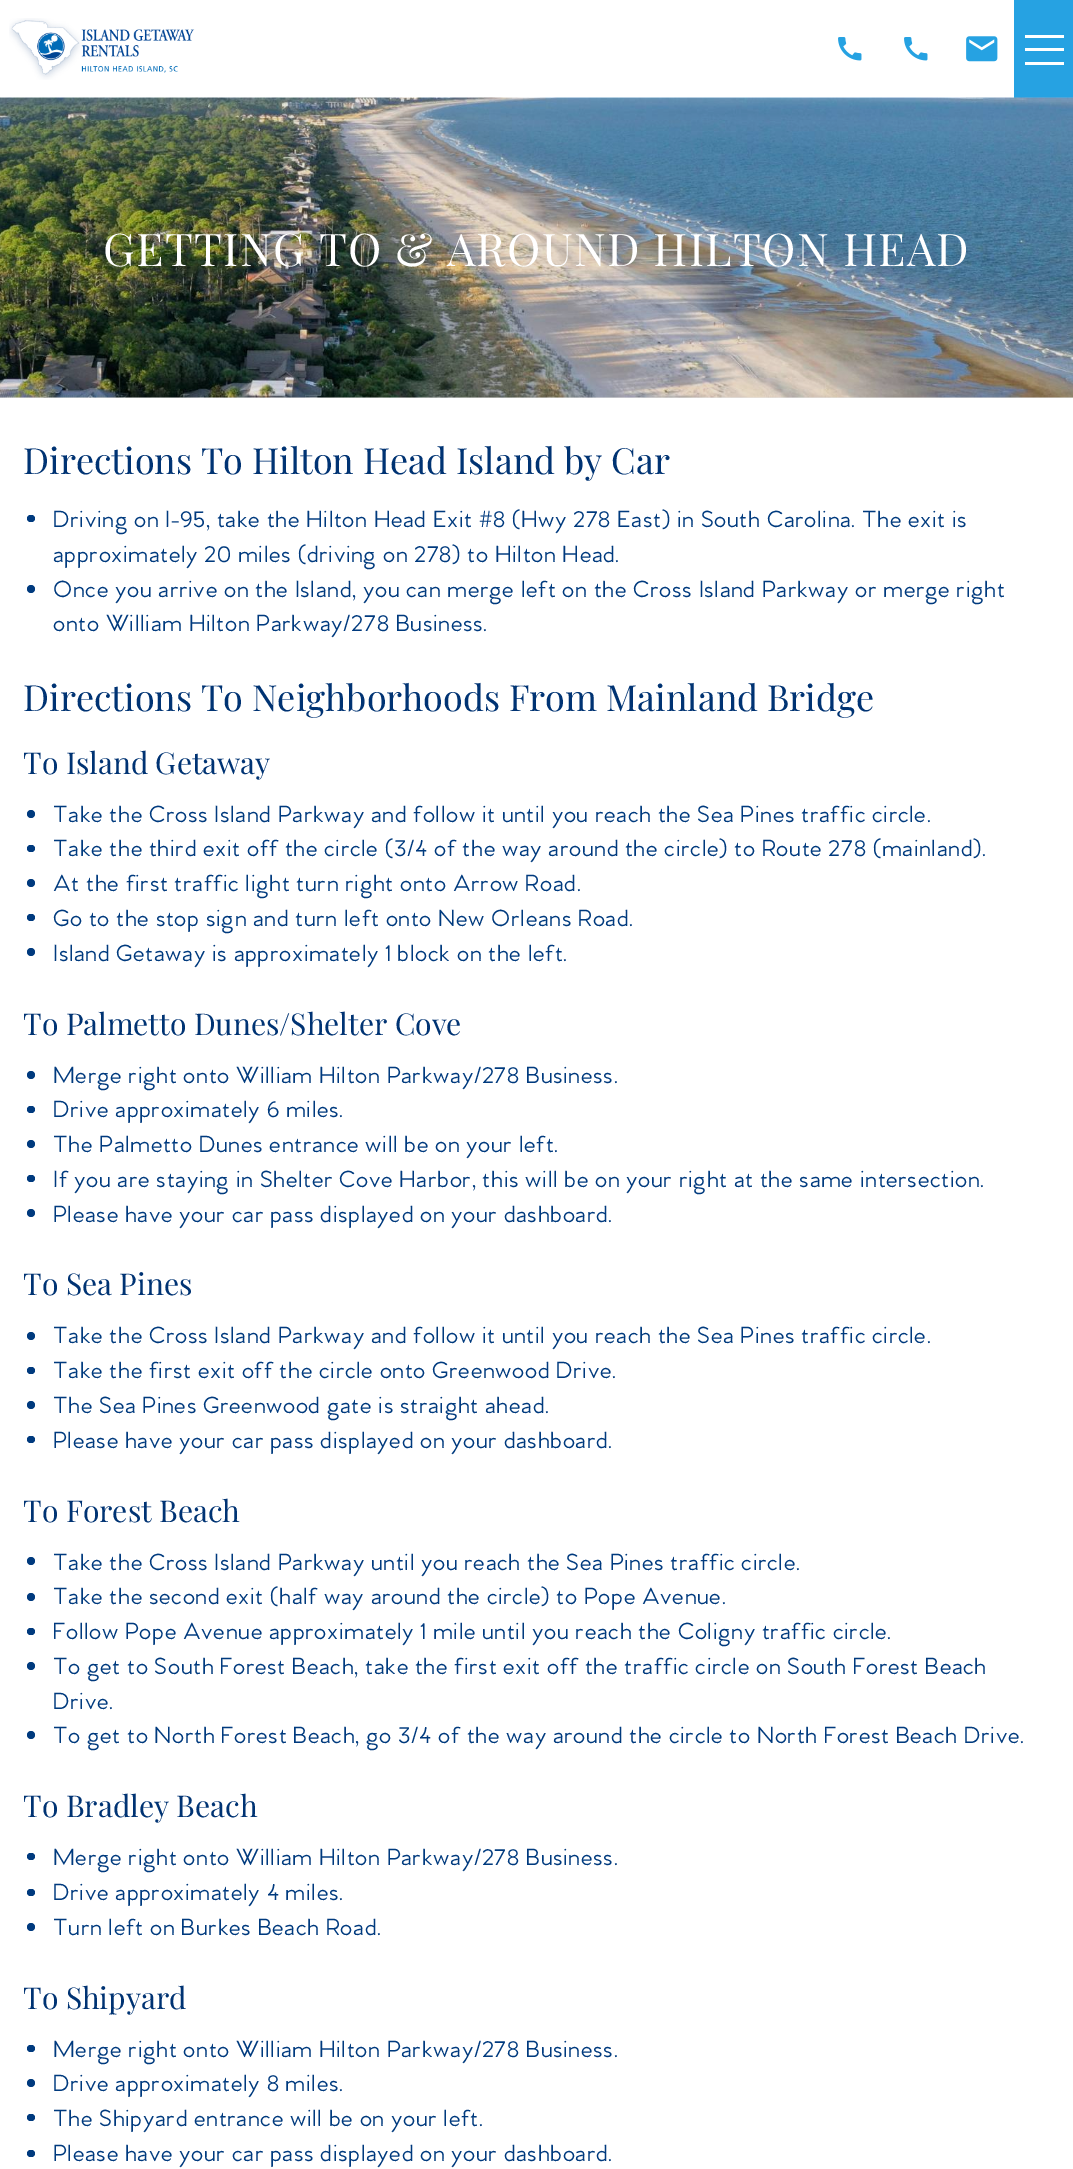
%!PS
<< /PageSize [1073 2169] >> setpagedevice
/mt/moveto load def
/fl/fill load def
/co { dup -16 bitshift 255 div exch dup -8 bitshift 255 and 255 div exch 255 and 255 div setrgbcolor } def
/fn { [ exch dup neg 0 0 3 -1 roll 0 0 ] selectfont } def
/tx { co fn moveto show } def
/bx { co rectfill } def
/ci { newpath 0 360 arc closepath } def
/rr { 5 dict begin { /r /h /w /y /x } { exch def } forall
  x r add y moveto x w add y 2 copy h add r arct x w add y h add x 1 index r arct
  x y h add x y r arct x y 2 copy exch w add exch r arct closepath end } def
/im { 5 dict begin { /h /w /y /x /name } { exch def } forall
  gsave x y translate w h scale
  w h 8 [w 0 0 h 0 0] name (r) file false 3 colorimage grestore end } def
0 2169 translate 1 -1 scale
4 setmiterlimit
0 0 1073 2169 16#FFFFFF bx
0 397 1073 1 16#E6E6E6 bx
(media/1.raw) 9 18 186 62 im
(media/2.raw) 838 37 24 24 im
(media/2.raw) 904 37 24 24 im
(media/3.raw) 966 36 32 26 im
1014 0 59 98 16#26A2E2 bx
1025 48 39 3 16#FFFFFF bx
1025 35 39 3 16#FFFFFF bx
1025 62 39 3 16#FFFFFF bx
(media/4.raw) 0 97 1073 301 im
16#003A7E co
27 515 8 7 3.5 rr fl
31 589 4 ci fl
31 814 4 ci fl
27 845 8 7 3.5 rr fl
31 883 4 ci fl
27 914 8 7 3.5 rr fl
31 952 4 ci fl
31 1075 4 ci fl
27 1106 8 7 3.5 rr fl
31 1144 4 ci fl
27 1175 8 7 3.5 rr fl
31 1213 4 ci fl
31 1336 4 ci fl
27 1367 8 7 3.5 rr fl
31 1405 4 ci fl
27 1436 8 7 3.5 rr fl
31 1561 4 ci fl
31 1597 4 ci fl
27 1628 8 7 3.5 rr fl
31 1666 4 ci fl
31 1735 4 ci fl
27 1853 8 7 3.5 rr fl
27 1889 8 7 3.5 rr fl
31 1927 4 ci fl
27 2045 8 7 3.5 rr fl
31 2083 4 ci fl
27 2114 8 7 3.5 rr fl
27 2150 8 7 3.5 rr fl
/PlayfairDisplay-Regular 45 fn
16#FFFFFF co
103 266 mt 1.35 0 (GETTING TO & AROUND HILTON HEAD) ashow
(Directions To Hilton Head Island by Car) 23 474 /PlayfairDisplay-Regular 36 16#003373 tx
/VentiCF-Medium 24 fn
16#003A7E co
53 527 mt .72 0 (Driving on I-95, take the Hilton Head Exit #8 \(Hwy 278 East\) in South Carolina. The exit is) ashow
53 562 mt .72 0 (approximately 20 miles \(driving on 278\) to Hilton Head.) ashow
53 597 mt .72 0 (Once you arrive on the Island, you can merge left on the Cross Island Parkway or merge right) ashow
53 631 mt .72 0 (onto William Hilton Parkway/278 Business.) ashow
(Directions To Neighborhoods From Mainland Bridge) 23 711 /PlayfairDisplay-Regular 36 16#003373 tx
(To Island Getaway) 23 774 /PlayfairDisplay-Regular 30 16#003373 tx
/VentiCF-Medium 24 fn
16#003A7E co
53 822 mt .72 0 (Take the Cross Island Parkway and follow it until you reach the Sea Pines traffic circle.) ashow
53 856 mt .72 0 (Take the third exit off the circle \(3/4 of the way around the circle\) to Route 278 \(mainland\).) ashow
53 891 mt .72 0 (At the first traffic light turn right onto Arrow Road.) ashow
53 926 mt .72 0 (Go to the stop sign and turn left onto New Orleans Road.) ashow
53 961 mt .72 0 (Island Getaway is approximately 1 block on the left.) ashow
(To Palmetto Dunes/Shelter Cove) 23 1035 /PlayfairDisplay-Regular 30 16#003373 tx
/VentiCF-Medium 24 fn
16#003A7E co
53 1083 mt .72 0 (Merge right onto William Hilton Parkway/278 Business.) ashow
53 1117 mt .72 0 (Drive approximately 6 miles.) ashow
53 1152 mt .72 0 (The Palmetto Dunes entrance will be on your left.) ashow
53 1187 mt .72 0 (If you are staying in Shelter Cove Harbor, this will be on your right at the same intersection.) ashow
53 1222 mt .72 0 (Please have your car pass displayed on your dashboard.) ashow
(To Sea Pines) 23 1295 /PlayfairDisplay-Regular 30 16#003373 tx
/VentiCF-Medium 24 fn
16#003A7E co
53 1343 mt .72 0 (Take the Cross Island Parkway and follow it until you reach the Sea Pines traffic circle.) ashow
53 1378 mt .72 0 (Take the first exit off the circle onto Greenwood Drive.) ashow
53 1413 mt .72 0 (The Sea Pines Greenwood gate is straight ahead.) ashow
53 1448 mt .72 0 (Please have your car pass displayed on your dashboard.) ashow
(To Forest Beach) 23 1522 /PlayfairDisplay-Regular 30 16#003373 tx
/VentiCF-Medium 24 fn
16#003A7E co
53 1570 mt .72 0 (Take the Cross Island Parkway until you reach the Sea Pines traffic circle.) ashow
53 1604 mt .72 0 (Take the second exit \(half way around the circle\) to Pope Avenue.) ashow
53 1639 mt .72 0 (Follow Pope Avenue approximately 1 mile until you reach the Coligny traffic circle.) ashow
53 1674 mt .72 0 (To get to South Forest Beach, take the first exit off the traffic circle on South Forest Beach) ashow
53 1709 mt .72 0 (Drive.) ashow
53 1743 mt .72 0 (To get to North Forest Beach, go 3/4 of the way around the circle to North Forest Beach Drive.) ashow
(To Bradley Beach) 23 1817 /PlayfairDisplay-Regular 30 16#003373 tx
/VentiCF-Medium 24 fn
16#003A7E co
53 1865 mt .72 0 (Merge right onto William Hilton Parkway/278 Business.) ashow
53 1900 mt .72 0 (Drive approximately 4 miles.) ashow
53 1935 mt .72 0 (Turn left on Burkes Beach Road.) ashow
(To Shipyard) 23 2009 /PlayfairDisplay-Regular 30 16#003373 tx
/VentiCF-Medium 24 fn
16#003A7E co
53 2057 mt .72 0 (Merge right onto William Hilton Parkway/278 Business.) ashow
53 2091 mt .72 0 (Drive approximately 8 miles.) ashow
53 2126 mt .72 0 (The Shipyard entrance will be on your left.) ashow
53 2161 mt .72 0 (Please have your car pass displayed on your dashboard.) ashow
showpage
